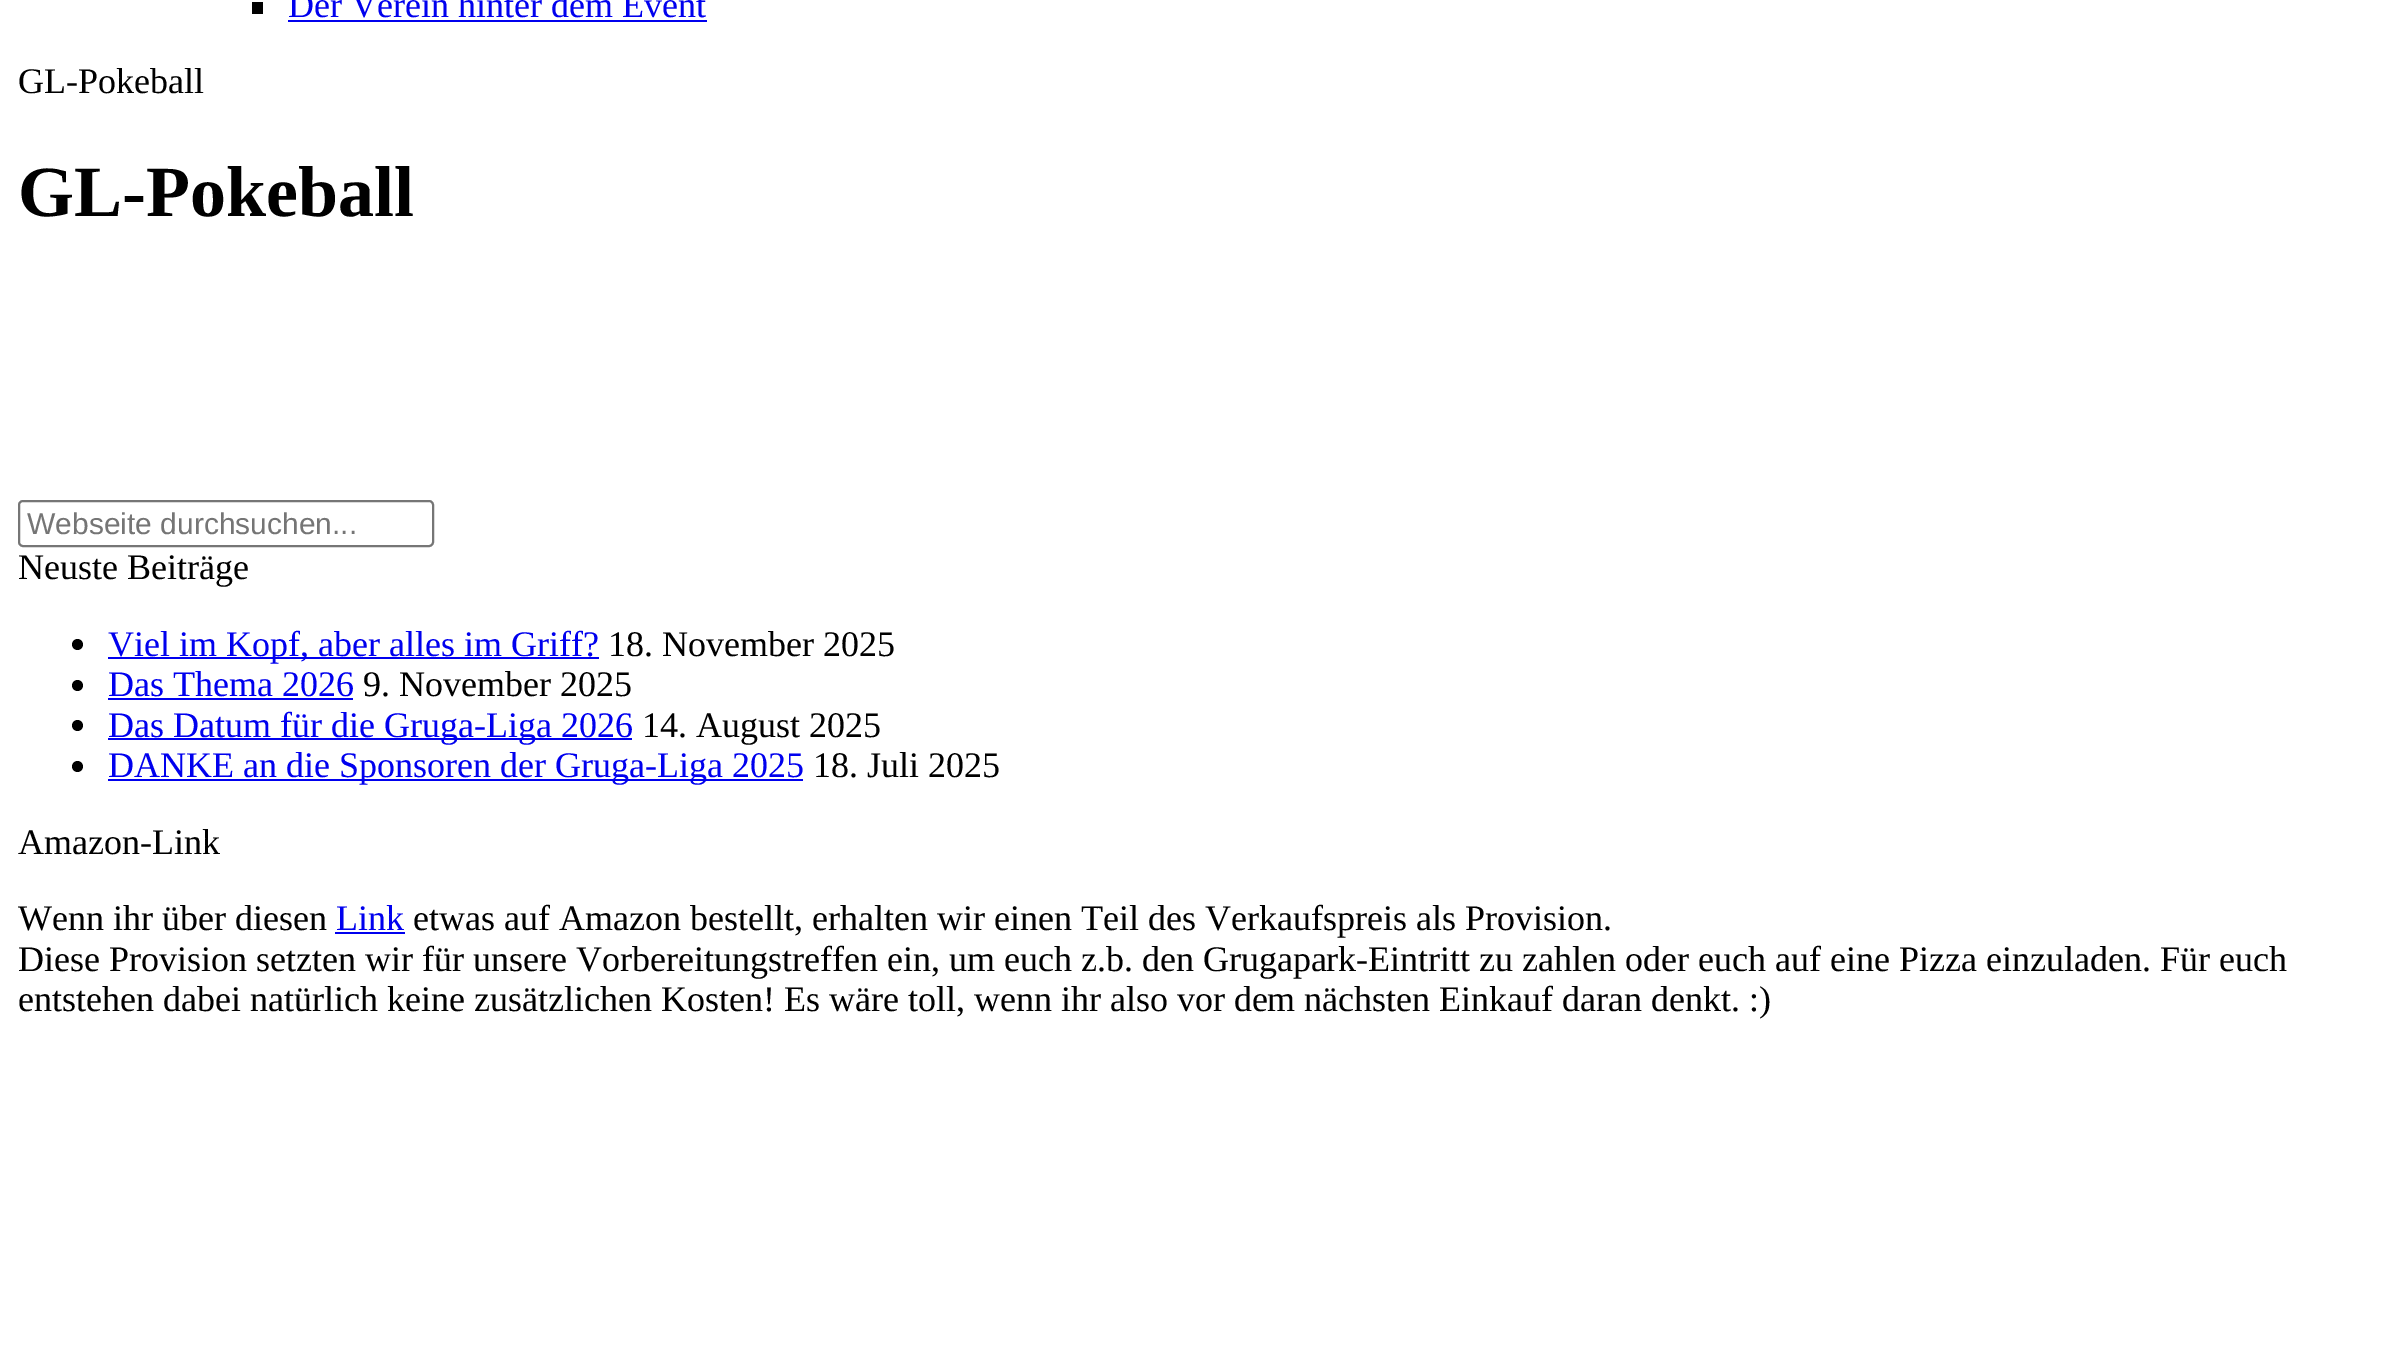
%!PS
<< /PageSize [2384 1351] >> setpagedevice
/fl/fill load def
/st/stroke load def
/lw/setlinewidth load def
/co { dup -16 bitshift 255 div exch dup -8 bitshift 255 and 255 div exch 255 and 255 div setrgbcolor } def
/fn { [ exch dup neg 0 0 3 -1 roll 0 0 ] selectfont } def
/tx { co fn moveto show } def
/bx { co rectfill } def
/ci { newpath 0 360 arc closepath } def
/rr { 5 dict begin { /r /h /w /y /x } { exch def } forall
  x r add y moveto x w add y 2 copy h add r arct x w add y h add x 1 index r arct
  x y h add x y r arct x y 2 copy exch w add exch r arct closepath end } def
0 1351 translate 1 -1 scale
4 setmiterlimit
0 0 2384 1351 16#FFFFFF bx
252 2 11 12 16#000000 bx
288 20 419 2 16#0000EE bx
16#767676 co
2 lw
19 501 414 45 4 rr st
16#000000 co
77.5 644.5 5.5 ci fl
108 657 491 2 16#0000EE bx
16#000000 co
77.5 685.5 5.5 ci fl
108 698 245 2 16#0000EE bx
16#000000 co
77.5 725.5 5.5 ci fl
108 738 524 2 16#0000EE bx
16#000000 co
77.5 766.5 5.5 ci fl
108 779 695 2 16#0000EE bx
335 932 70 2 16#0000EE bx
(Der Verein hinter dem Event) 288 17 /LiberationSerif-Regular 36 16#0000EE tx
(GL-Pokeball) 18 93 /LiberationSerif-Regular 36 16#000000 tx
(GL-Pokeball) 18 216 /LiberationSerif-Bold 72 16#000000 tx
(Webseite durchsuchen...) 27 534 /LiberationSans-Regular 30 16#757575 tx
(Neuste Beiträge) 18 579 /LiberationSerif-Regular 36 16#000000 tx
(Viel im Kopf, aber alles im Griff?) 108 656 /LiberationSerif-Regular 36 16#0000EE tx
(18. November 2025) 608 656 /LiberationSerif-Regular 36 16#000000 tx
(Das Thema 2026) 108 696 /LiberationSerif-Regular 36 16#0000EE tx
(9. November 2025) 363 696 /LiberationSerif-Regular 36 16#000000 tx
(Das Datum für die Gruga-Liga 2026) 108 737 /LiberationSerif-Regular 36 16#0000EE tx
(14. August 2025) 642 737 /LiberationSerif-Regular 36 16#000000 tx
(DANKE an die Sponsoren der Gruga-Liga 2025) 108 777 /LiberationSerif-Regular 36 16#0000EE tx
(18. Juli 2025) 813 777 /LiberationSerif-Regular 36 16#000000 tx
(Amazon-Link) 18 854 /LiberationSerif-Regular 36 16#000000 tx
(Wenn ihr über diesen) 18 930 /LiberationSerif-Regular 36 16#000000 tx
(Link) 336 930 /LiberationSerif-Regular 36 16#0000EE tx
(etwas auf Amazon bestellt, erhalten wir einen Teil des Verkaufspreis als Provision.) 413 930 /LiberationSerif-Regular 36 16#000000 tx
(Diese Provision setzten wir für unsere Vorbereitungstreffen ein, um euch z.b. den Grugapark-Eintritt zu zahlen oder euch auf eine Pizza einzuladen. Für euch) 18 971 /LiberationSerif-Regular 36 16#000000 tx
(entstehen dabei natürlich keine zusätzlichen Kosten! Es wäre toll, wenn ihr also vor dem nächsten Einkauf daran denkt. :\)) 18 1011 /LiberationSerif-Regular 36 16#000000 tx
showpage
